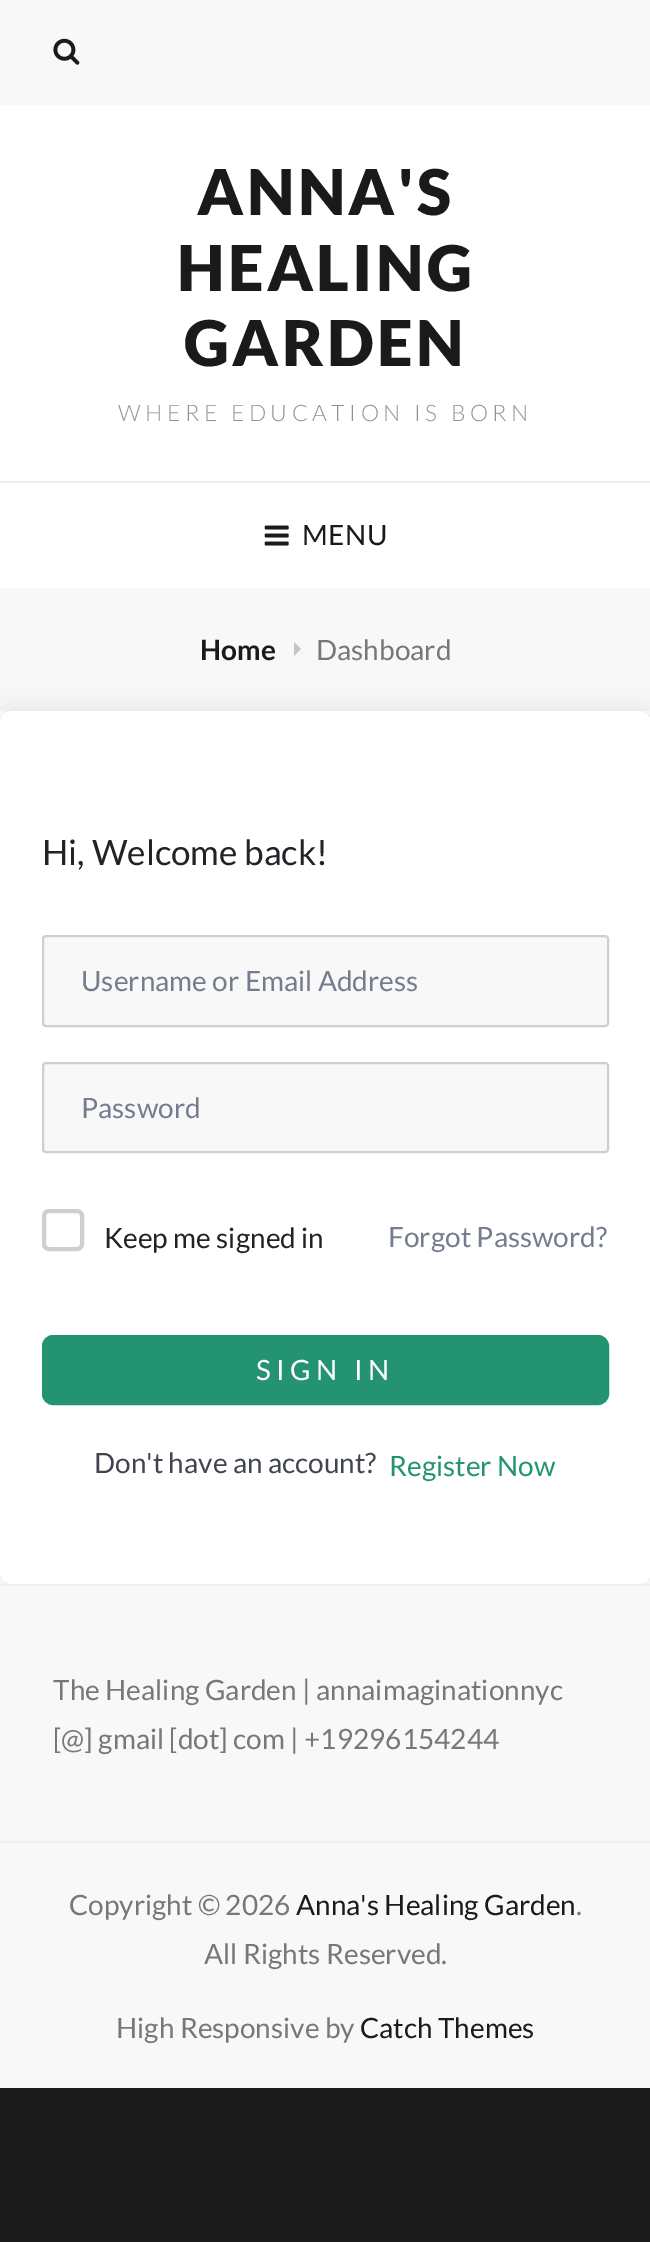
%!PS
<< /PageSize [650 2242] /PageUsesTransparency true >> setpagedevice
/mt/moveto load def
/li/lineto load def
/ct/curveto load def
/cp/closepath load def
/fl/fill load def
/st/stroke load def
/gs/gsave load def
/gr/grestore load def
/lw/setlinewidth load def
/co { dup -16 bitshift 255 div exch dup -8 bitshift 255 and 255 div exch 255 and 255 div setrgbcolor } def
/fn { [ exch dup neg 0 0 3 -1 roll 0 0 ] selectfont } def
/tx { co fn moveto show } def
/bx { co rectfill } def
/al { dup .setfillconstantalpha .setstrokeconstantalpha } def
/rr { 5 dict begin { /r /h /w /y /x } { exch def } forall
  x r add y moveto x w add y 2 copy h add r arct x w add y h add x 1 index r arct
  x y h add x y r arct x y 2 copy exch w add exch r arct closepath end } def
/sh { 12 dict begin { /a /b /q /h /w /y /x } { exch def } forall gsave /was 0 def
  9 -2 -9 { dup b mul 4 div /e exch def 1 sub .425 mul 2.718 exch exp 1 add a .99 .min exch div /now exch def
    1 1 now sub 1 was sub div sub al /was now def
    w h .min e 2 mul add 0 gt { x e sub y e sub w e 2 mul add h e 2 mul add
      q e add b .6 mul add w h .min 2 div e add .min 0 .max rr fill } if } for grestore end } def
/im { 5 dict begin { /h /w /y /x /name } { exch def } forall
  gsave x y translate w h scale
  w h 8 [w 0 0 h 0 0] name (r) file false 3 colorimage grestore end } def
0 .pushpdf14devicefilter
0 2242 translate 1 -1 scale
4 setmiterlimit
0 0 650 2242 16#1A1A1A bx
0 105 650 1479 16#FFFFFF bx
0 0 650 105 16#F8F8F8 bx
(media/1.raw) 53 38 27 27 im
0 481 650 2 16#EEEEEE bx
(media/2.raw) 264 525 25 21 im
0 588 650 123 16#F8F8F8 bx
16#C5C5C5 co
294 656 mt 294 642 li 301 649 li cp fl
gs
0 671 mt 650 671 li 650 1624 li 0 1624 li cp 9 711 mt 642 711 li 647 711 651 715 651 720 ct 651 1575 li 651 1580 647 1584 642 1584 ct 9 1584 li 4 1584 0 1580 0 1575 ct 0 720 li 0 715 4 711 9 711 ct cp eoclip newpath
16#000000 co
0 711 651 873 9 13 .1 sh
gr
16#F8F8F8 co
43 936 565 90 3 rr gs fl gr
16#CDCFD5 co
2 lw
st
16#F8F8F8 co
43 1063 565 89 3 rr gs fl gr
16#CDCFD5 co
st
4 lw
44 1211 38 38 5 rr st
16#239371 co
43 1336 565 68 10 rr gs fl gr
2 lw
st
0 1586 650 502 16#F8F8F8 bx
0 1584 650 2 16#EEEEEE bx
0 1841 650 2 16#EEEEEE bx
/Lato-Black 63 fn
16#1A1A1A co
197 215 mt 3.25 0 (ANNA'S) ashow
177 291 mt 3.25 0 (HEALING) ashow
184 366 mt 3.25 0 (GARDEN) ashow
/Lato-Light 22.75 fn
16#919191 co
118 421 mt 4.55 0 (WHERE EDUCATION IS BORN) ashow
/Lato-Regular 28 fn
16#1A1A1A co
302 545 mt .5 0 (MENU) ashow
(Home) 200 660 /Lato-Bold 28 16#1A1A1A tx
(Dashboard) 316 660 /Lato-Regular 28 16#777777 tx
(Hi, Welcome back!) 42 865 /Lato-Regular 35 16#212327 tx
(Username or Email Address) 81 991 /Lato-Regular 28 16#757C8E tx
(Password) 81 1118 /Lato-Regular 28 16#757C8E tx
(Keep me signed in) 104 1248 /Lato-Regular 28 16#212327 tx
(Forgot Password?) 388 1247 /Lato-Regular 28 16#757C8E tx
16#FFFFFF co
256 1380 mt 5.5 0 (SIGN IN) ashow
(Don't have an account?) 94 1473 /Lato-Regular 28 16#41454F tx
(Register Now) 389 1476 /Lato-Regular 28 16#239371 tx
(The Healing Garden | annaimaginationnyc) 53 1700 /Lato-Regular 28 16#777777 tx
([@] gmail [dot] com | +19296154244) 53 1749 /Lato-Regular 28 16#777777 tx
(Copyright © 2026) 69 1915 /Lato-Regular 28 16#777777 tx
(Anna's Healing Garden) 296 1915 /Lato-Regular 28 16#1A1A1A tx
(.) 576 1915 /Lato-Regular 28 16#777777 tx
(All Rights Reserved.) 204 1964 /Lato-Regular 28 16#777777 tx
(High Responsive by) 116 2038 /Lato-Regular 28 16#777777 tx
(Catch Themes) 360 2038 /Lato-Regular 28 16#1A1A1A tx
.poppdf14devicefilter showpage
